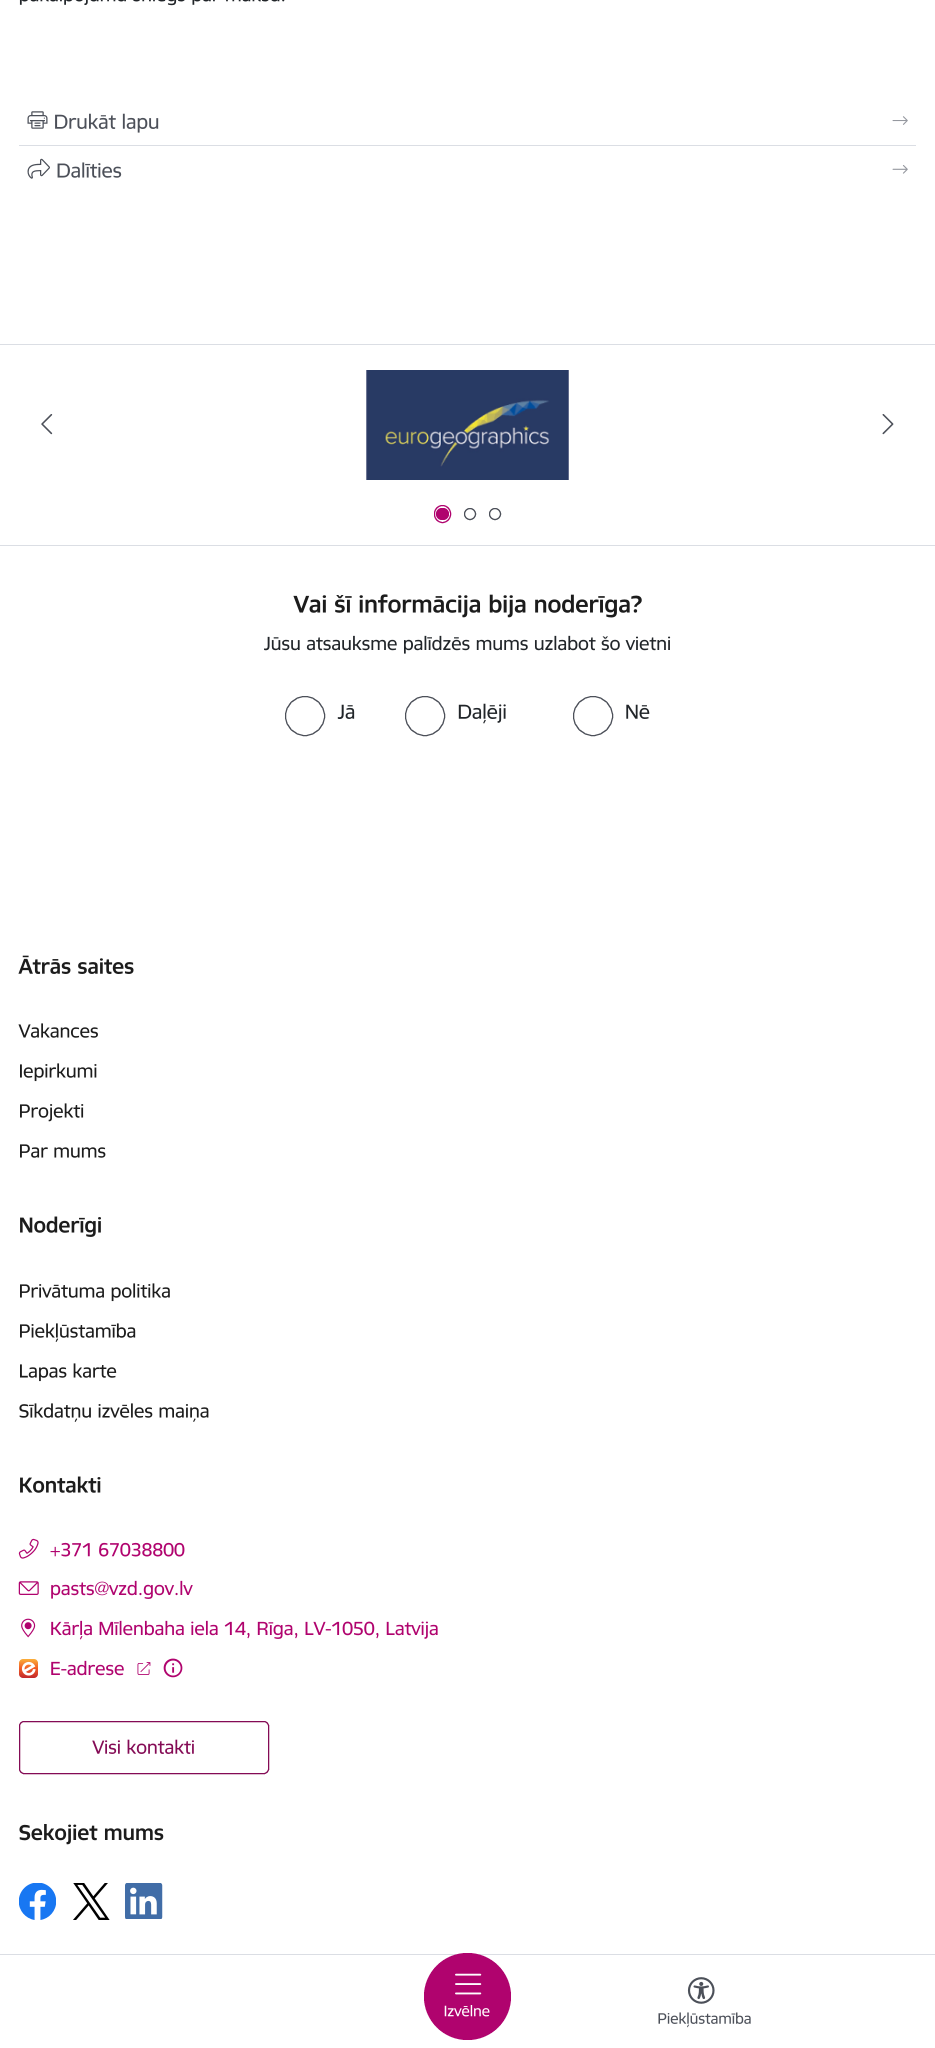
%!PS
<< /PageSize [935 2048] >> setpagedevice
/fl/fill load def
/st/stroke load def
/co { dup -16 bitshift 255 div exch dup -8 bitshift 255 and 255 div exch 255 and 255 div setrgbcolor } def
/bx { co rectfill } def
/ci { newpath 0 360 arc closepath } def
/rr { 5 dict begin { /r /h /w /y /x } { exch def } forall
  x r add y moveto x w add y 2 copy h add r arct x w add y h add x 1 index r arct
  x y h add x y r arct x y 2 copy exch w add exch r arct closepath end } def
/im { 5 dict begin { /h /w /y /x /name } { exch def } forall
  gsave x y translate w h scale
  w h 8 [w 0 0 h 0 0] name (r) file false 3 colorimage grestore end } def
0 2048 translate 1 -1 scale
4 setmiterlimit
0 0 935 2048 16#FFFFFF bx
(media/1.raw) 19 0 266 6 im
19 145 897 1 16#DBDEE4 bx
(media/2.raw) 27 111 21 18 im
(media/3.raw) 55 113 104 20 im
(media/4.raw) 892 116 16 9 im
(media/5.raw) 27 158 23 21 im
(media/6.raw) 57 162 65 16 im
(media/7.raw) 892 165 16 9 im
0 344 935 1 16#DBDEE4 bx
(media/8.raw) 41 414 12 21 im
(media/9.raw) 366 370 203 110 im
(media/10.raw) 882 414 12 21 im
16#B0036E co
434.5 505.5 16 17 8 rr st
436 508 13 12 6 rr fl
16#4C5059 co
470 514 5.5 ci st
495 514 5.5 ci st
0 545 935 1 16#DBDEE4 bx
(media/11.raw) 293 594 349 24 im
(media/12.raw) 264 635 407 19 im
16#4C5059 co
305 716 19.5 ci st
(media/13.raw) 337 704 18 15 im
425 716 19.5 ci st
(media/14.raw) 458 703 48 21 im
593 716 19.5 ci st
(media/15.raw) 626 704 24 15 im
(media/16.raw) 18 955 116 19 im
(media/17.raw) 18 1023 80 15 im
(media/18.raw) 20 1063 77 19 im
(media/19.raw) 20 1103 64 19 im
(media/20.raw) 20 1144 86 14 im
(media/21.raw) 20 1216 81 21 im
(media/22.raw) 20 1283 150 19 im
(media/23.raw) 20 1323 116 19 im
(media/24.raw) 20 1363 97 19 im
(media/25.raw) 19 1403 190 19 im
(media/26.raw) 20 1476 81 17 im
(media/27.raw) 18 1538 21 21 im
(media/28.raw) 50 1542 135 15 im
(media/29.raw) 18 1581 21 14 im
(media/30.raw) 51 1580 142 19 im
(media/31.raw) 21 1618 15 20 im
(media/32.raw) 51 1620 387 20 im
(media/33.raw) 19 1659 19 19 im
(media/34.raw) 51 1660 73 16 im
(media/35.raw) 137 1662 14 13 im
(media/36.raw) 163 1658 20 20 im
16#840B55 co
19.5 1721.5 249 52 4.5 rr st
(media/37.raw) 92 1739 102 15 im
(media/38.raw) 19 1824 145 21 im
(media/39.raw) 19 1883 37 37 im
(media/40.raw) 73 1883 37 37 im
(media/41.raw) 125 1883 38 36 im
0 1954 935 1 16#DBDEE4 bx
16#B0036E co
467.5 1996.5 43.5 ci fl
(media/42.raw) 455 1973 27 22 im
(media/43.raw) 444 2005 46 12 im
(media/44.raw) 687 1977 28 27 im
(media/45.raw) 658 2012 93 16 im
showpage
